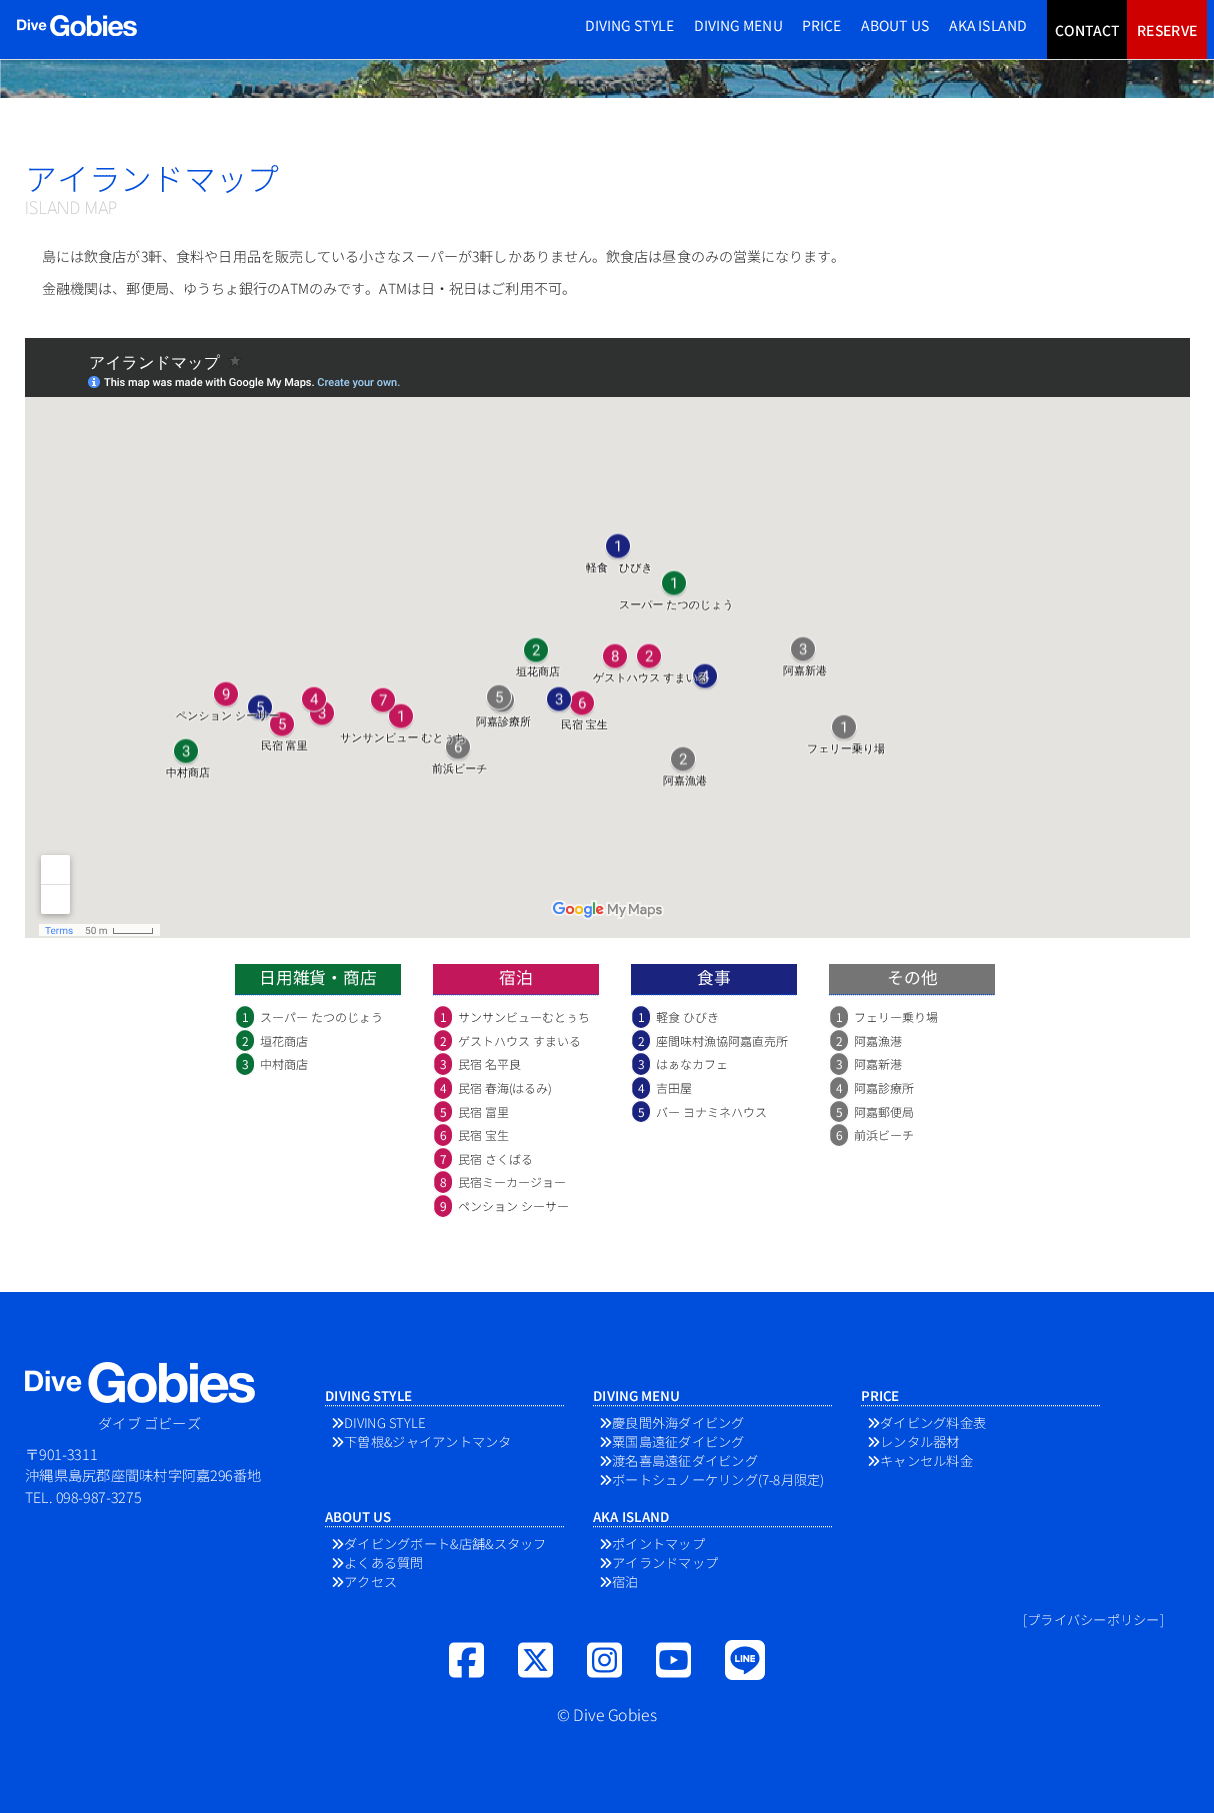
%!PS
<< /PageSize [1214 1813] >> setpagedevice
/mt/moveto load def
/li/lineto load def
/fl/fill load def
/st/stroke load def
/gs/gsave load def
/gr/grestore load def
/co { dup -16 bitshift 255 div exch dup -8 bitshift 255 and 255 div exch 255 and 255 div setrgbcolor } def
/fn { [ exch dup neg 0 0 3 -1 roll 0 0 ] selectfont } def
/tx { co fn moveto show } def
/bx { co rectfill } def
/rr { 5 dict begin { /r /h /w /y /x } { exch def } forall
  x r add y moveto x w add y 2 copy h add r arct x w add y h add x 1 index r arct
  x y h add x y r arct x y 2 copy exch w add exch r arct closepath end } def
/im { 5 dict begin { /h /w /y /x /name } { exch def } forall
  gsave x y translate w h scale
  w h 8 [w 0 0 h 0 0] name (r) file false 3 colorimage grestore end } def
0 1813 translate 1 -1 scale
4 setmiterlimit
0 0 1214 1813 16#FFFFFF bx
0 0 1214 59 16#004EDC bx
0 59 1214 1 16#DDDDDD bx
(media/1.raw) 17 15 120 21 im
1047 0 80 59 16#000000 bx
1127 0 80 59 16#CF0000 bx
(media/2.raw) 0 60 1214 38 im
(media/3.raw) 25 338 1165 600 im
235 964 166 31 16#097138 bx
16#004EDC co
[1 1] 0 setdash
235 994.5 mt 401 994.5 li st
16#097138 co
235.5 1005.5 19 23 9.5 rr gs fl gr
16#FFFFFF co
[] 0 setdash
st
16#097138 co
235.5 1029.5 19 22 9.5 rr gs fl gr
16#FFFFFF co
st
16#097138 co
235.5 1052.5 19 23 9.5 rr gs fl gr
16#FFFFFF co
st
433 964 166 31 16#C2185B bx
16#004EDC co
[1 1] 0 setdash
433 994.5 mt 599 994.5 li st
16#C2185B co
433.5 1005.5 19 23 9.5 rr gs fl gr
16#FFFFFF co
[] 0 setdash
st
16#C2185B co
433.5 1029.5 19 22 9.5 rr gs fl gr
16#FFFFFF co
st
16#C2185B co
433.5 1052.5 19 23 9.5 rr gs fl gr
16#FFFFFF co
st
16#C2185B co
433.5 1076.5 19 23 9.5 rr gs fl gr
16#FFFFFF co
st
16#C2185B co
433.5 1100.5 19 22 9.5 rr gs fl gr
16#FFFFFF co
st
16#C2185B co
433.5 1123.5 19 23 9.5 rr gs fl gr
16#FFFFFF co
st
16#C2185B co
433.5 1147.5 19 22 9.5 rr gs fl gr
16#FFFFFF co
st
16#C2185B co
433.5 1170.5 19 23 9.5 rr gs fl gr
16#FFFFFF co
st
16#C2185B co
433.5 1194.5 19 23 9.5 rr gs fl gr
16#FFFFFF co
st
631 964 166 31 16#1A237E bx
16#004EDC co
[1 1] 0 setdash
631 994.5 mt 797 994.5 li st
16#1A237E co
631.5 1005.5 19 23 9.5 rr gs fl gr
16#FFFFFF co
[] 0 setdash
st
16#1A237E co
631.5 1029.5 19 22 9.5 rr gs fl gr
16#FFFFFF co
st
16#1A237E co
631.5 1052.5 19 23 9.5 rr gs fl gr
16#FFFFFF co
st
16#1A237E co
631.5 1076.5 19 23 9.5 rr gs fl gr
16#FFFFFF co
st
16#1A237E co
631.5 1100.5 19 22 9.5 rr gs fl gr
16#FFFFFF co
st
829 964 166 31 16#757575 bx
16#004EDC co
[1 1] 0 setdash
829 994.5 mt 995 994.5 li st
16#757575 co
829.5 1005.5 19 23 9.5 rr gs fl gr
16#FFFFFF co
[] 0 setdash
st
16#757575 co
829.5 1029.5 19 22 9.5 rr gs fl gr
16#FFFFFF co
st
16#757575 co
829.5 1052.5 19 23 9.5 rr gs fl gr
16#FFFFFF co
st
16#757575 co
829.5 1076.5 19 23 9.5 rr gs fl gr
16#FFFFFF co
st
16#757575 co
829.5 1100.5 19 22 9.5 rr gs fl gr
16#FFFFFF co
st
16#757575 co
829.5 1123.5 19 23 9.5 rr gs fl gr
16#FFFFFF co
st
0 1292 1214 521 16#004EDC bx
(media/4.raw) 25 1362 230 41 im
16#FFFFFF co
[1 1] 0 setdash
325 1405.5 mt 565 1405.5 li st
(media/5.raw) 332 1418 12 10 im
(media/5.raw) 332 1437 12 10 im
593 1405.5 mt 833 1405.5 li st
(media/5.raw) 600 1418 12 10 im
(media/5.raw) 600 1437 12 10 im
(media/5.raw) 600 1456 12 10 im
(media/5.raw) 600 1475 12 10 im
861 1405.5 mt 1101 1405.5 li st
(media/5.raw) 868 1418 12 10 im
(media/5.raw) 868 1437 12 10 im
(media/5.raw) 868 1456 12 10 im
325 1526.5 mt 565 1526.5 li st
(media/5.raw) 332 1539 12 10 im
(media/5.raw) 332 1558 12 10 im
(media/5.raw) 332 1577 12 10 im
593 1526.5 mt 833 1526.5 li st
(media/5.raw) 600 1539 12 10 im
(media/5.raw) 600 1558 12 10 im
(media/5.raw) 600 1577 12 10 im
(media/6.raw) 449 1642 35 36 im
(media/7.raw) 518 1642 35 36 im
(media/8.raw) 587 1642 35 36 im
(media/9.raw) 656 1642 35 36 im
(media/10.raw) 725 1640 40 40 im
(DIVING STYLE) 585 31 /NotoSansJP-Regular 14 16#FFFFFF tx
(DIVING MENU) 694 31 /NotoSansJP-Regular 14 16#FFFFFF tx
(PRICE) 802 31 /NotoSansJP-Regular 14 16#FFFFFF tx
(ABOUT US) 861 31 /NotoSansJP-Regular 14 16#FFFFFF tx
(AKA ISLAND) 949 31 /NotoSansJP-Regular 14 16#FFFFFF tx
(CONTACT) 1055 36 /NotoSansJP-Medium 14 16#FFFFFF tx
(RESERVE) 1137 36 /NotoSansJP-Medium 14 16#FFFFFF tx
(アイランドマップ) 25 191 /NotoSansJP-Light 31.75 16#004EDC tx
(ISLAND MAP) 25 214 /LeagueSpartan-Thin 19 16#C8C8C8 tx
(島には飲食店が3軒、食料や日用品を販売している小さなスーパーが3軒しかありません。飲食店は昼食のみの営業になります。) 42 262 /NotoSansJP-Light 14.08 16#222222 tx
(金融機関は、郵便局、ゆうちょ銀行のATMのみです。ATMは日・祝日はご利用不可。) 42 294 /NotoSansJP-Light 14.08 16#222222 tx
(日用雑貨・商店) 259 984 /NotoSansJP-Regular 16.75 16#FFFFFF tx
(1) 242 1022 /NotoSansJP-Regular 12 16#FFFFFF tx
(スーパー たつのじょう) 260 1022 /NotoSansJP-Light 12 16#222222 tx
(2) 242 1046 /NotoSansJP-Regular 12 16#FFFFFF tx
(垣花商店) 260 1046 /NotoSansJP-Light 12 16#222222 tx
(3) 242 1069 /NotoSansJP-Regular 12 16#FFFFFF tx
(中村商店) 260 1069 /NotoSansJP-Light 12 16#222222 tx
(宿泊) 499 984 /NotoSansJP-Regular 16.75 16#FFFFFF tx
(1) 440 1022 /NotoSansJP-Regular 12 16#FFFFFF tx
(サンサンビューむとぅち) 458 1022 /NotoSansJP-Light 12 16#222222 tx
(2) 440 1046 /NotoSansJP-Regular 12 16#FFFFFF tx
(ゲストハウス すまいる) 458 1046 /NotoSansJP-Light 12 16#222222 tx
(3) 440 1069 /NotoSansJP-Regular 12 16#FFFFFF tx
(民宿 名平良) 458 1069 /NotoSansJP-Light 12 16#222222 tx
(4) 440 1093 /NotoSansJP-Regular 12 16#FFFFFF tx
(民宿 春海\(はるみ\)) 458 1093 /NotoSansJP-Light 12 16#222222 tx
(5) 440 1117 /NotoSansJP-Regular 12 16#FFFFFF tx
(民宿 富里) 458 1117 /NotoSansJP-Light 12 16#222222 tx
(6) 440 1140 /NotoSansJP-Regular 12 16#FFFFFF tx
(民宿 宝生) 458 1140 /NotoSansJP-Light 12 16#222222 tx
(7) 440 1164 /NotoSansJP-Regular 12 16#FFFFFF tx
(民宿 さくばる) 458 1164 /NotoSansJP-Light 12 16#222222 tx
(8) 440 1187 /NotoSansJP-Regular 12 16#FFFFFF tx
(民宿ミーカージョー) 458 1187 /NotoSansJP-Light 12 16#222222 tx
(9) 440 1211 /NotoSansJP-Regular 12 16#FFFFFF tx
(ペンション シーサー) 458 1211 /NotoSansJP-Light 12 16#222222 tx
(食事) 697 984 /NotoSansJP-Regular 16.75 16#FFFFFF tx
(1) 638 1022 /NotoSansJP-Regular 12 16#FFFFFF tx
(軽食 ひびき) 656 1022 /NotoSansJP-Light 12 16#222222 tx
(2) 638 1046 /NotoSansJP-Regular 12 16#FFFFFF tx
(座間味村漁協阿嘉直売所) 656 1046 /NotoSansJP-Light 12 16#222222 tx
(3) 638 1069 /NotoSansJP-Regular 12 16#FFFFFF tx
(はぁなカフェ) 656 1069 /NotoSansJP-Light 12 16#222222 tx
(4) 638 1093 /NotoSansJP-Regular 12 16#FFFFFF tx
(吉田屋) 656 1093 /NotoSansJP-Light 12 16#222222 tx
(5) 638 1117 /NotoSansJP-Regular 12 16#FFFFFF tx
(バー ヨナミネハウス) 656 1117 /NotoSansJP-Light 12 16#222222 tx
(その他) 887 984 /NotoSansJP-Regular 16.75 16#FFFFFF tx
(1) 836 1022 /NotoSansJP-Regular 12 16#FFFFFF tx
(フェリー乗り場) 854 1022 /NotoSansJP-Light 12 16#222222 tx
(2) 836 1046 /NotoSansJP-Regular 12 16#FFFFFF tx
(阿嘉漁港) 854 1046 /NotoSansJP-Light 12 16#222222 tx
(3) 836 1069 /NotoSansJP-Regular 12 16#FFFFFF tx
(阿嘉新港) 854 1069 /NotoSansJP-Light 12 16#222222 tx
(4) 836 1093 /NotoSansJP-Regular 12 16#FFFFFF tx
(阿嘉診療所) 854 1093 /NotoSansJP-Light 12 16#222222 tx
(5) 836 1117 /NotoSansJP-Regular 12 16#FFFFFF tx
(阿嘉郵便局) 854 1117 /NotoSansJP-Light 12 16#222222 tx
(6) 836 1140 /NotoSansJP-Regular 12 16#FFFFFF tx
(前浜ビーチ) 854 1140 /NotoSansJP-Light 12 16#222222 tx
(ダイブ ゴビーズ) 98 1429 /NotoSansJP-Light 14.25 16#FFFFFF tx
(〒901-3311) 25 1460 /NotoSansJP-Light 14.25 16#FFFFFF tx
(沖縄県島尻郡座間味村字阿嘉296番地) 25 1481 /NotoSansJP-Light 14.25 16#FFFFFF tx
(TEL. 098-987-3275) 25 1503 /NotoSansJP-Light 14.25 16#FFFFFF tx
(DIVING STYLE) 325 1401 /NotoSansJP-SemiBold 13.25 16#FFFFFF tx
(DIVING STYLE) 344 1428 /NotoSansJP-Light 13.25 16#FFFFFF tx
(下曽根&ジャイアントマンタ) 344 1447 /NotoSansJP-Light 13.25 16#FFFFFF tx
(DIVING MENU) 593 1401 /NotoSansJP-SemiBold 13.25 16#FFFFFF tx
(慶良間外海ダイビング) 612 1428 /NotoSansJP-Light 13.25 16#FFFFFF tx
(粟国島遠征ダイビング) 612 1447 /NotoSansJP-Light 13.25 16#FFFFFF tx
(渡名喜島遠征ダイビング) 612 1466 /NotoSansJP-Light 13.25 16#FFFFFF tx
(ボートシュノーケリング\(7-8月限定\)) 612 1485 /NotoSansJP-Light 13.25 16#FFFFFF tx
(PRICE) 861 1401 /NotoSansJP-SemiBold 13.25 16#FFFFFF tx
(ダイビング料金表) 880 1428 /NotoSansJP-Light 13.25 16#FFFFFF tx
(レンタル器材) 880 1447 /NotoSansJP-Light 13.25 16#FFFFFF tx
(キャンセル料金) 880 1466 /NotoSansJP-Light 13.25 16#FFFFFF tx
(ABOUT US) 325 1522 /NotoSansJP-SemiBold 13.25 16#FFFFFF tx
(ダイビングボート&店舗&スタッフ) 344 1549 /NotoSansJP-Light 13.25 16#FFFFFF tx
(よくある質問) 344 1568 /NotoSansJP-Light 13.25 16#FFFFFF tx
(アクセス) 344 1587 /NotoSansJP-Light 13.25 16#FFFFFF tx
(AKA ISLAND) 593 1522 /NotoSansJP-SemiBold 13.25 16#FFFFFF tx
(ポイントマップ) 612 1549 /NotoSansJP-Light 13.25 16#FFFFFF tx
(アイランドマップ) 612 1568 /NotoSansJP-Light 13.25 16#FFFFFF tx
(宿泊) 612 1587 /NotoSansJP-Light 13.25 16#FFFFFF tx
([プライバシーポリシー]) 1023 1625 /NotoSansJP-Light 13.25 16#FFFFFF tx
(© Dive Gobies) 557 1721 /NotoSansJP-Light 15.75 16#FFFFFF tx
showpage
